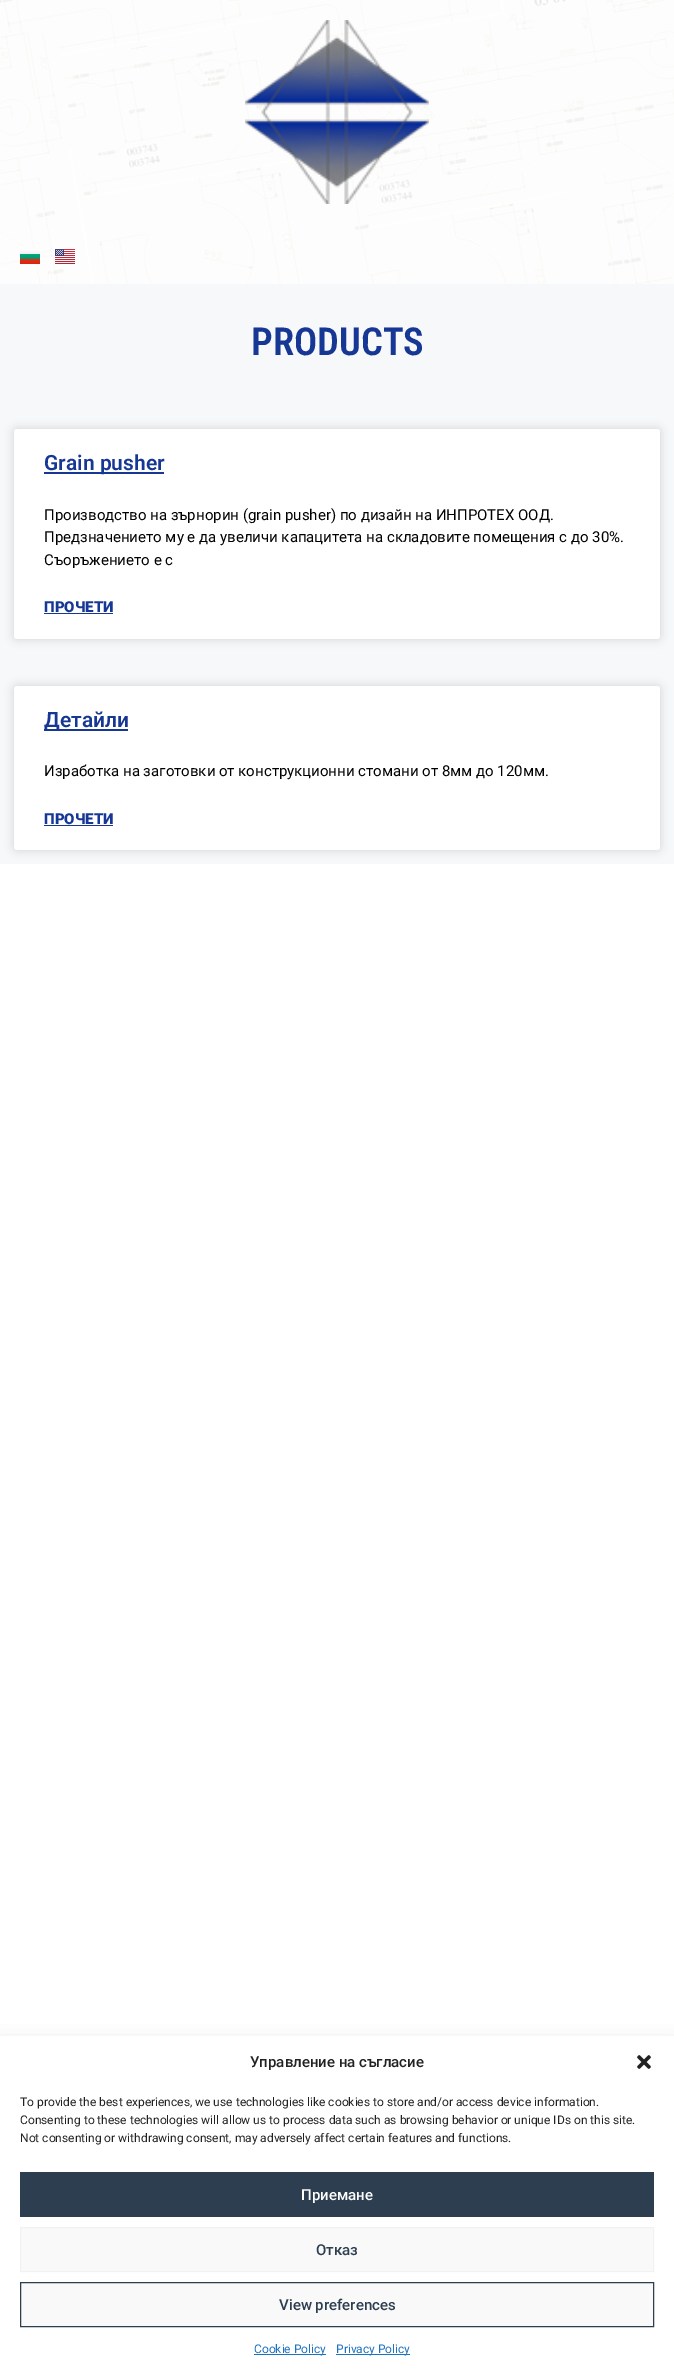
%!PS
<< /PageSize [674 2376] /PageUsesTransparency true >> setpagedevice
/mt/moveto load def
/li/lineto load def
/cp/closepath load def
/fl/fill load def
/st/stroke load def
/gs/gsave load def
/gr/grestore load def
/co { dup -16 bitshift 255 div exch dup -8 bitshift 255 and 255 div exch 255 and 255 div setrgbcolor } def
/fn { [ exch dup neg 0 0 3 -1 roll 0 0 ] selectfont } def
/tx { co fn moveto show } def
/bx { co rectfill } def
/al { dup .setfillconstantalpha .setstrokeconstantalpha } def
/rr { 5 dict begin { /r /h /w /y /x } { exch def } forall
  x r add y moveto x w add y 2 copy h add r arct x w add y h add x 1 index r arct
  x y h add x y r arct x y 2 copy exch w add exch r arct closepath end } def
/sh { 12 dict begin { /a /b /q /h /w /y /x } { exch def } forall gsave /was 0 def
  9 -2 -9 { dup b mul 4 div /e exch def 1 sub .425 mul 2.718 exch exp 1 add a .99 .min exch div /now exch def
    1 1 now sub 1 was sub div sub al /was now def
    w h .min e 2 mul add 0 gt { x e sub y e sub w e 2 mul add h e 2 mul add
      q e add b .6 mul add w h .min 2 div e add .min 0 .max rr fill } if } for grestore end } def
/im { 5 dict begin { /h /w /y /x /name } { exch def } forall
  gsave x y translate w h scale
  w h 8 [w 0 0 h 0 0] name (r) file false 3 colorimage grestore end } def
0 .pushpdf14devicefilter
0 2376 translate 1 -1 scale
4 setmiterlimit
0 0 674 2376 16#FFFFFF bx
(media/1.raw) 0 0 674 284 im
(media/2.raw) 245 20 184 184 im
gs 20 249 mt 40 249 li 40 254 li 20 254 li cp clip newpath
<< /ShadingType 2 /ColorSpace /DeviceRGB /Coords [31 249 31 254] /Extend [true true] /Function << /FunctionType 2 /Domain [0 1] /C0 [1 1 1] /C1 [.941 .941 .941] /N 1 >> >> shfill gr
gs 20 254 mt 40 254 li 40 259 li 20 259 li cp clip newpath
<< /ShadingType 2 /ColorSpace /DeviceRGB /Coords [31 254 31 259] /Extend [true true] /Function << /FunctionType 2 /Domain [0 1] /C0 [.024 .655 .486] /C1 [0 .588 .431] /N 1 >> >> shfill gr
gs 20 259 mt 40 259 li 40 264 li 20 264 li cp clip newpath
<< /ShadingType 2 /ColorSpace /DeviceRGB /Coords [31 259 31 264] /Extend [true true] /Function << /FunctionType 2 /Domain [0 1] /C0 [.89 .18 .098] /C1 [.839 .149 .071] /N 1 >> >> shfill gr
(media/3.raw) 55 249 20 15 im
0 284 674 580 16#F7F8F9 bx
16#000000 co
14 429 646 210 3 5 .15 sh
16#FFFFFF co
14 429 646 210 3 rr fl
44 472 120 2 16#173795 bx
44 613 69 1 16#173795 bx
16#000000 co
14 686 646 164 3 5 .15 sh
16#FFFFFF co
14 686 646 164 3 rr fl
44 729 84 2 16#173795 bx
44 825 69 1 16#173795 bx
16#000000 co
0 2046 674 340 0 10 .19 sh
0 2036 674 340 16#FFFFFF bx
(media/4.raw) 637 2055 14 14 im
20 2172 634 45 16#2C3E50 bx
16#F9F9F9 co
20.5 2227.5 mt 653.5 2227.5 li 653.5 2271.5 li 20.5 2271.5 li cp gs fl gr
16#F2F2F2 co
st
16#F9F9F9 co
20.5 2282.5 mt 653.5 2282.5 li 653.5 2326.5 li 20.5 2326.5 li cp gs fl gr
16#2C3E50 co
st
254 2354 72 1 16#1E73BE bx
336 2354 74 1 16#1E73BE bx
(PRODUCTS) 251 355 /RobotoCondensed-SemiBold 38.5 16#173795 tx
(Grain pusher) 44 470 /Roboto-SemiBold 21 16#173795 tx
(Производство на зърнорин \(grain pusher\) по дизайн на ИНПРОТЕХ ООД.) 44 520 /Roboto-Regular 15 16#000000 tx
(Предзначението му е да увеличи капацитета на складовите помещения с до 30%.) 44 542 /Roboto-Regular 15 16#000000 tx
(Съоръжението е с) 44 565 /Roboto-Regular 15 16#000000 tx
(ПРОЧЕТИ) 44 612 /Roboto-Black 15 16#173795 tx
(Детайли) 44 727 /Roboto-SemiBold 21 16#173795 tx
(Изработка на заготовки от конструкционни стомани от 8мм до 120мм.) 44 776 /Roboto-Regular 15 16#000000 tx
(ПРОЧЕТИ) 44 824 /Roboto-Black 15 16#173795 tx
(Управление на съгласие) 250 2067 /Roboto-Medium 15 16#222222 tx
(To provide the best experiences, we use technologies like cookies to store and/or access device information.) 20 2106 /Roboto-Regular 12 16#222222 tx
(Consenting to these technologies will allow us to process data such as browsing behavior or unique IDs on this site.) 20 2124 /Roboto-Regular 12 16#222222 tx
(Not consenting or withdrawing consent, may adversely affect certain features and functions.) 20 2142 /Roboto-Regular 12 16#222222 tx
(Приемане) 301 2200 /Roboto-Medium 15 16#FFFFFF tx
(Отказ) 316 2255 /Roboto-Medium 15 16#2C3E50 tx
(View preferences) 279 2310 /Roboto-Medium 15 16#2C3E50 tx
(Cookie Policy) 254 2353 /Roboto-Regular 12 16#1E73BE tx
(Privacy Policy) 336 2353 /Roboto-Regular 12 16#1E73BE tx
.poppdf14devicefilter showpage
